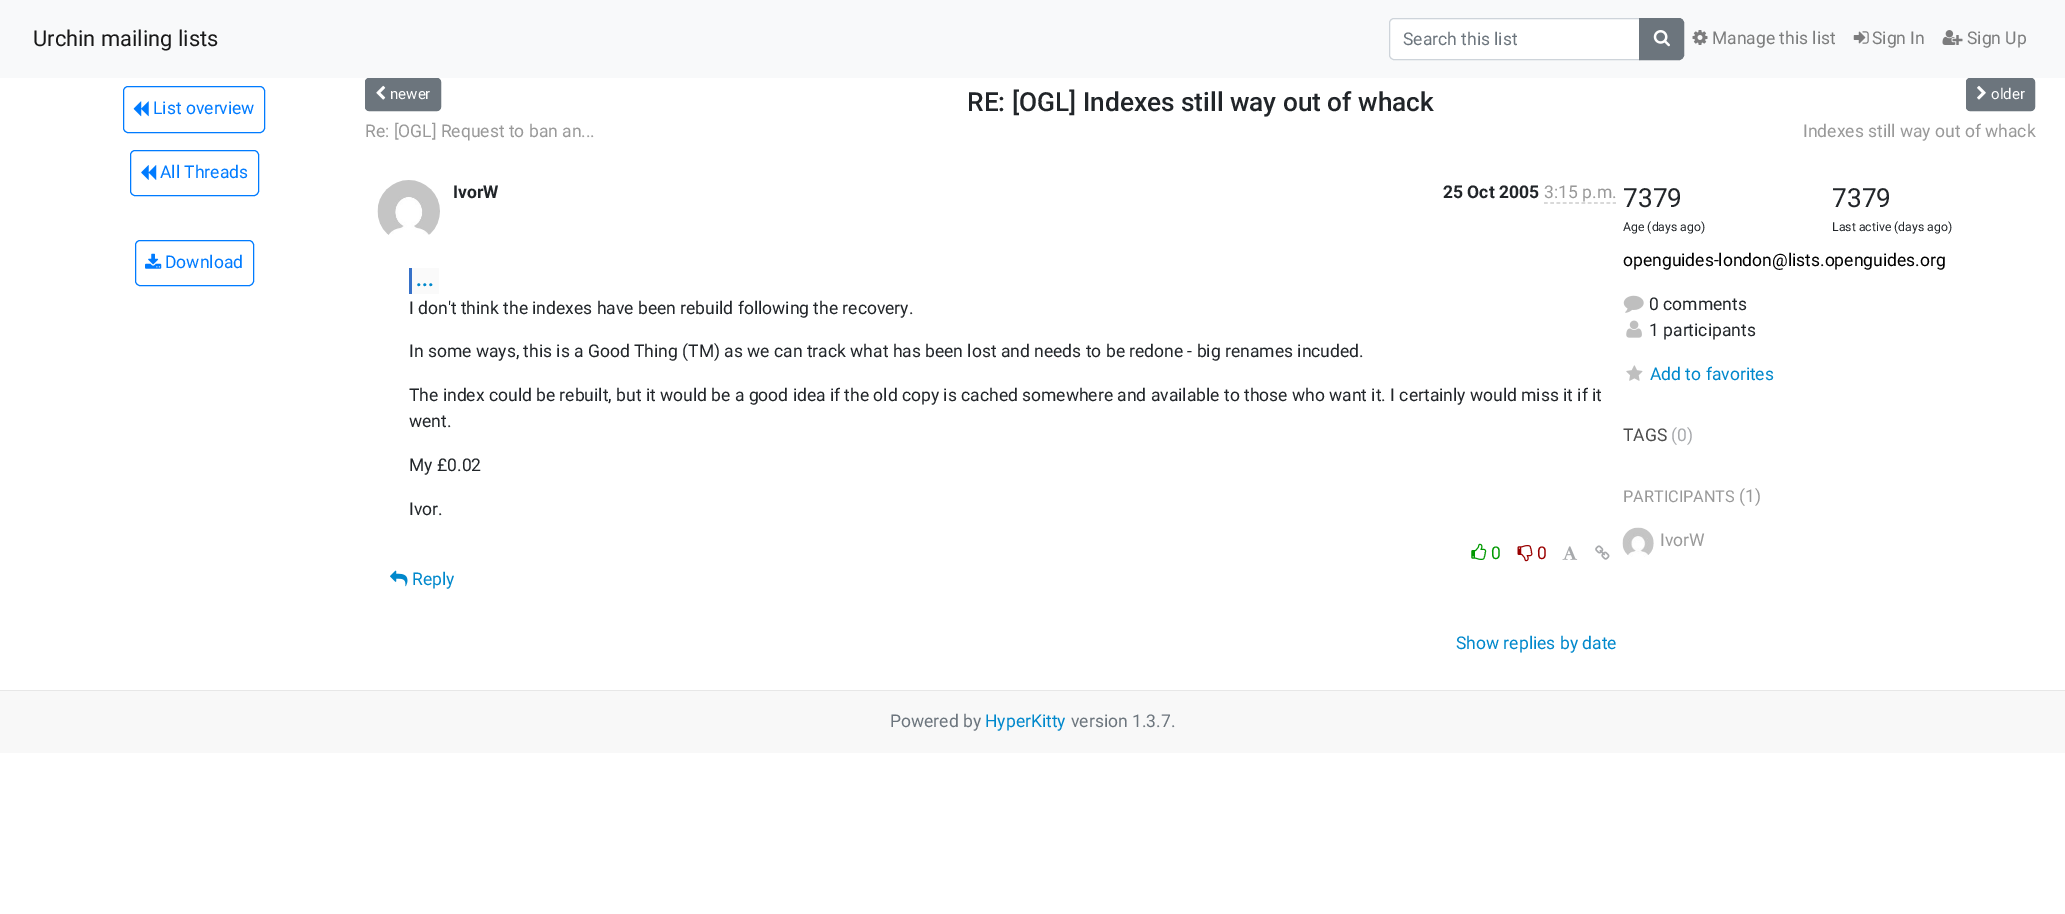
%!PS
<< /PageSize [2065 914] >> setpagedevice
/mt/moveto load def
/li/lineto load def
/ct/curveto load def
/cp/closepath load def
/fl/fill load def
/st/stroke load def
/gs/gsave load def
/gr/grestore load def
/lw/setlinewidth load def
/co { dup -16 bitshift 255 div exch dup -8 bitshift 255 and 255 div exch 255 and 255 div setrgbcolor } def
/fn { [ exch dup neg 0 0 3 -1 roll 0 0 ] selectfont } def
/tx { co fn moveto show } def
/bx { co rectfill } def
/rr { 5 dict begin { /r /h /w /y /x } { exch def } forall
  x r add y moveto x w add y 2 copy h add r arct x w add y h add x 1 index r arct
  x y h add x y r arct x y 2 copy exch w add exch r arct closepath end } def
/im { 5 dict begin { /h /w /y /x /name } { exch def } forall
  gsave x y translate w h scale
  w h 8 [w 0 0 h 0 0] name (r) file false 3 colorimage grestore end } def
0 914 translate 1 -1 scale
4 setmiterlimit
0 0 2065 914 16#FFFFFF bx
0 0 2065 78 16#F8F9FA bx
16#FFFFFF co
1393 19 mt 1639 19 li 1639 59 li 1393 59 li 1391.5 59 1390 57.5 1390 56 ct 1390 22 li 1390 20.5 1391.5 19 1393 19 ct cp fl
16#CED4DA co
1394 18.5 mt 1639.5 18.5 li 1639.5 59.5 li 1394 59.5 li 1391.5 59.5 1389.5 57.5 1389.5 55 ct 1389.5 23 li 1389.5 20.5 1391.5 18.5 1394 18.5 ct cp st
16#6C757D co
1639.5 18.5 mt 1679 18.5 li 1681.5 18.5 1683.5 20.5 1683.5 23 ct 1683.5 55 li 1683.5 57.5 1681.5 59.5 1679 59.5 ct 1639.5 59.5 li cp gs fl gr
st
(media/1.raw) 1653 30 17 17 im
(media/2.raw) 1692 30 16 15 im
(media/3.raw) 1853 31 16 13 im
(media/4.raw) 1942 30 21 15 im
16#007BFF co
123.5 86.5 141 46 4.5 rr st
(media/5.raw) 133 101 16 16 im
130.5 150.5 128 45 4.5 rr st
(media/6.raw) 141 165 16 15 im
135.5 240.5 118 45 4.5 rr st
(media/7.raw) 145 253 17 16 im
16#6C757D co
365.5 78.5 75 32 3.5 rr gs fl gr
st
(media/8.raw) 376 85 10 15 im
1966.5 78.5 68 32 3.5 rr gs fl gr
st
(media/9.raw) 1977 85 9 15 im
(media/10.raw) 377 180 63 55 im
16#CCCCCC co
1.2 lw
[3.75 2.5] 0 setdash
1544 203 mt 1616 203 li st
412 268 27 26 16#FAFAFA bx
409 268 3 26 16#3771C8 bx
(media/11.raw) 1471 543 16 17 im
(media/12.raw) 1517 545 16 17 im
(media/13.raw) 1562 546 16 14 im
(media/14.raw) 1595 545 15 15 im
(media/15.raw) 390 570 18 17 im
(media/16.raw) 1623 295 21 18 im
(media/17.raw) 1626 320 16 18 im
(media/18.raw) 1626 365 17 16 im
(media/19.raw) 1622 527 32 30 im
0 691 2065 62 16#F8F8F8 bx
0 690 2065 1 16#E7E7E7 bx
(Urchin mailing lists) 33 46 /Roboto-Regular 21.9 16#191919 tx
(Search this list) 1403 45 /Roboto-Regular 17.5 16#6C757D tx
(Manage this list) 1712 44 /Roboto-Regular 17.5 16#7C7D7D tx
(Sign In) 1872 44 /Roboto-Regular 17.5 16#7C7D7D tx
(Sign Up) 1967 44 /Roboto-Regular 17.5 16#7C7D7D tx
(List overview) 153 114 /Roboto-Regular 17.5 16#007BFF tx
(All Threads) 160 178 /Roboto-Regular 17.5 16#007BFF tx
(Download) 165 268 /Roboto-Regular 17.5 16#007BFF tx
(newer) 390 99 /Roboto-Regular 15 16#FFFFFF tx
(RE: [OGL] Indexes still way out of whack) 967 111 /Roboto-Medium 26.25 16#212529 tx
(older) 1991 99 /Roboto-Regular 15 16#FFFFFF tx
(Re: [OGL] Request to ban an...) 365 137 /Roboto-Regular 17.5 16#999999 tx
(Indexes still way out of whack) 1803 137 /Roboto-Regular 17.5 16#999999 tx
(IvorW) 453 198 /Roboto-Bold 17.5 16#212529 tx
(25 Oct 2005) 1443 198 /Roboto-Bold 17.5 16#212529 tx
(3:15 p.m.) 1544 198 /Roboto-Regular 17.5 16#999999 tx
(...) 416 286 /Roboto-Bold 20 16#0088CC tx
(I don't think the indexes have been rebuild following the recovery.) 409 314 /Roboto-Regular 17.5 16#212529 tx
(In some ways, this is a Good Thing \(TM\) as we can track what has been lost and needs to be redone - big renames incuded.) 409 357 /Roboto-Regular 17.5 16#212529 tx
(The index could be rebuilt, but it would be a good idea if the old copy is cached somewhere and available to those who want it. I certainly would miss it if it) 409 401 /Roboto-Regular 17.5 16#212529 tx
(went.) 409 427 /Roboto-Regular 17.5 16#212529 tx
(My £0.02) 409 471 /Roboto-Regular 17.5 16#212529 tx
(Ivor.) 409 515 /Roboto-Regular 17.5 16#212529 tx
(0) 1491 559 /Roboto-Regular 17.5 16#009900 tx
(0) 1537 559 /Roboto-Regular 17.5 16#990000 tx
(Reply) 412 585 /Roboto-Regular 17.5 16#0088CC tx
(Show replies by date) 1456 649 /Roboto-Regular 17.5 16#0088CC tx
(7379) 1623 207 /Roboto-Regular 26.25 16#212529 tx
(Age \(days ago\)) 1623 231 /Roboto-Regular 12.25 16#212529 tx
(7379) 1832 207 /Roboto-Regular 26.25 16#212529 tx
(Last active \(days ago\)) 1832 231 /Roboto-Regular 12.25 16#212529 tx
(openguides-london@lists.openguides.org) 1623 266 /Roboto-Regular 17.5 16#000000 tx
(0 comments) 1649 310 /Roboto-Regular 17.5 16#212529 tx
(1 participants) 1649 336 /Roboto-Regular 17.5 16#212529 tx
(Add to favorites) 1650 380 /Roboto-Regular 17.5 16#0088CC tx
(TAGS) 1623 441 /Roboto-Regular 17.5 16#4D4D4D tx
(\(0\)) 1671 441 /Roboto-Regular 17.5 16#A7A9AC tx
(PARTICIPANTS) 1623 502 /Roboto-Regular 16.25 16#999999 tx
(\(1\)) 1739 502 /Roboto-Regular 17.5 16#999999 tx
(IvorW) 1660 546 /Roboto-Regular 17.5 16#999999 tx
(Powered by) 890 727 /Roboto-Regular 17.5 16#6C757D tx
(HyperKitty) 985 727 /Roboto-Regular 17.5 16#0088CC tx
(version 1.3.7.) 1071 727 /Roboto-Regular 17.5 16#6C757D tx
showpage
